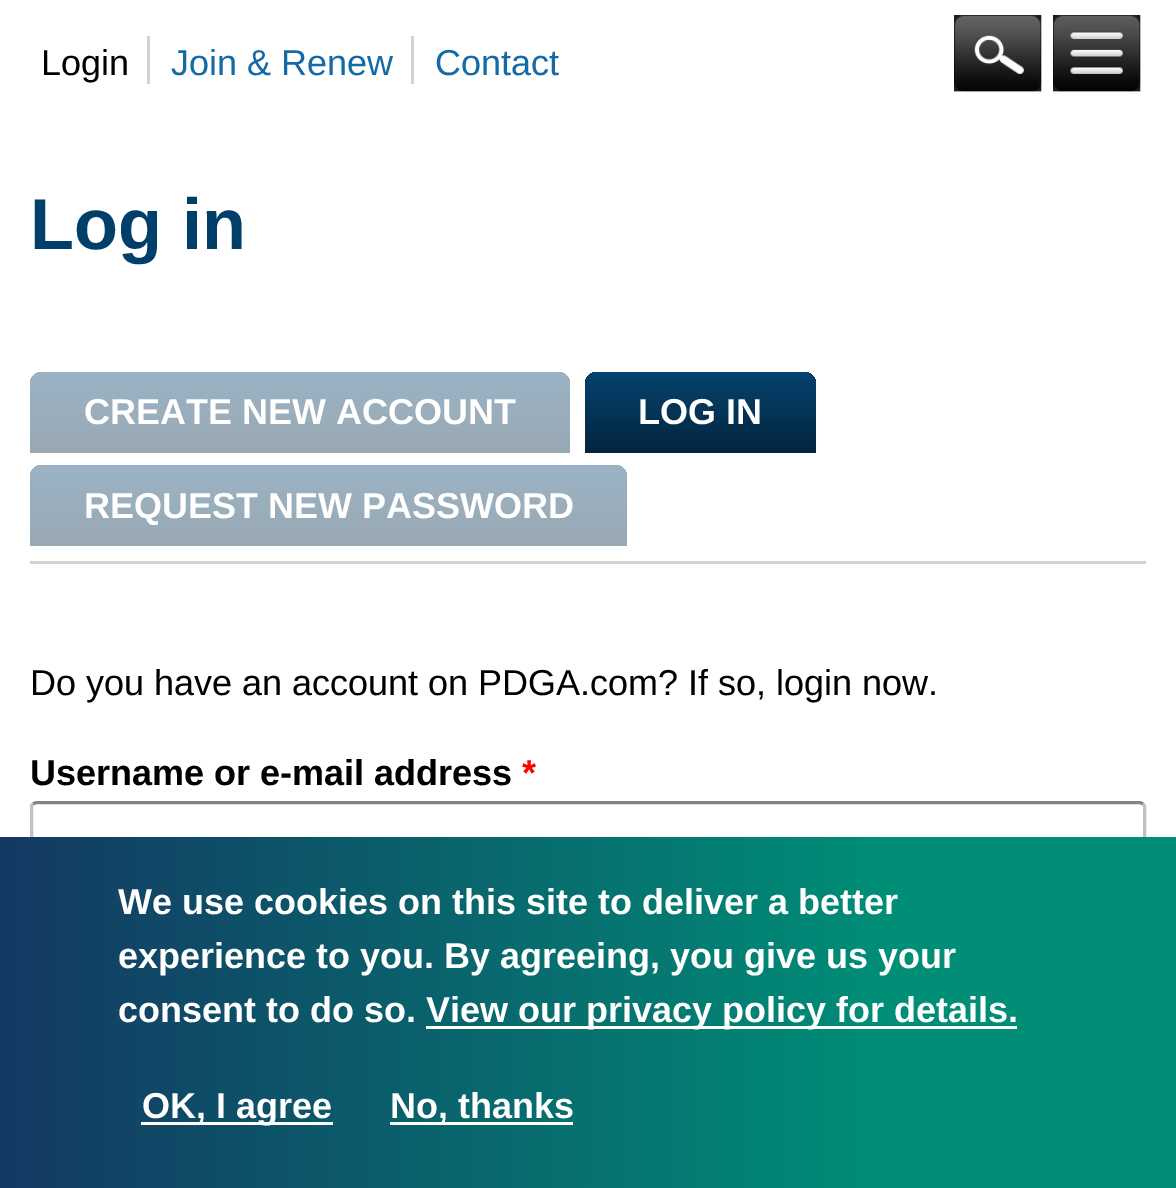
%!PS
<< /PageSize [1176 1188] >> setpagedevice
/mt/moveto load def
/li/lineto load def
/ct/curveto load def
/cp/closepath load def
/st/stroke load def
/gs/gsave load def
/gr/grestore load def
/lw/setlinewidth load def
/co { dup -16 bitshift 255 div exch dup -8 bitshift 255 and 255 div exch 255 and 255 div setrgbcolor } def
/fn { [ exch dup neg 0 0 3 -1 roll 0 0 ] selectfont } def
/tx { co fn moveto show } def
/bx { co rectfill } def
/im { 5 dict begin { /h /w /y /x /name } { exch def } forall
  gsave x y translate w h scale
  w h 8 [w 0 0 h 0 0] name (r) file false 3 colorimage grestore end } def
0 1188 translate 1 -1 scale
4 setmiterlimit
0 0 1176 1188 16#FFFFFF bx
147 36 3 48 16#D3D3D3 bx
411 36 3 48 16#D3D3D3 bx
(media/1.raw) 954 15 88 77 im
(media/2.raw) 1053 15 88 77 im
30 561 1116 3 16#D3D3D3 bx
gs 42 372 mt 558 372 li 564.5 372 570 377.5 570 384 ct 570 453 li 30 453 li 30 384 li 30 377.5 35.5 372 42 372 ct cp clip newpath
<< /ShadingType 2 /ColorSpace /DeviceRGB /Coords [300 372 300 453] /Extend [true true] /Function << /FunctionType 2 /Domain [0 1] /C0 [.608 .702 .773] /C1 [.6 .663 .702] /N 1 >> >> shfill gr
gs 597 372 mt 804 372 li 810.5 372 816 377.5 816 384 ct 816 453 li 585 453 li 585 384 li 585 377.5 590.5 372 597 372 ct cp clip newpath
<< /ShadingType 2 /ColorSpace /DeviceRGB /Coords [701 372 701 453] /Extend [true true] /Function << /FunctionType 2 /Domain [0 1] /C0 [.02 .259 .431] /C1 [.012 .145 .243] /N 1 >> >> shfill gr
gs 42 465 mt 615 465 li 621.5 465 627 470.5 627 477 ct 627 546 li 30 546 li 30 477 li 30 470.5 35.5 465 42 465 ct cp clip newpath
<< /ShadingType 2 /ColorSpace /DeviceRGB /Coords [329 465 329 546] /Extend [true true] /Function << /FunctionType 2 /Domain [0 1] /C0 [.608 .702 .773] /C1 [.6 .663 .702] /N 1 >> >> shfill gr
16#848484 co
3 lw
33 804 mt 36 802.5 li 1140 802.5 li 1143 804 li st
16#C1C1C1 co
1143 804 mt 1144 804.5 1144.5 806 1144.5 807 ct 1144.5 864 li 1144.5 865 1144 866.5 1143 867 ct st
33 867 mt 32 866.5 31.5 865 31.5 864 ct 31.5 807 li 31.5 806 32 804.5 33 804 ct st
gs 0 837 mt 1176 837 li 1176 1188 li 0 1188 li cp clip newpath
<< /ShadingType 2 /ColorSpace /DeviceRGB /Coords [0 1013 1176 1013] /Extend [true true] /Function << /FunctionType 3 /Domain [0 1] /Functions [<< /FunctionType 2 /Domain [0 1] /C0 [.078 .224 .388] /C1 [0 .557 .467] /N 1 >> << /FunctionType 2 /Domain [0 1] /C0 [0 .557 .467] /C1 [0 .557 .467] /N 1 >>] /Bounds [.75] /Encode [0 1 0 1] >> >> shfill gr
426 1026 591 3 16#FFFFFF bx
141 1122 192 3 16#FFFFFF bx
390 1122 183 3 16#FFFFFF bx
(Login) 41 75 /LiberationSans-Regular 36 16#000000 tx
(Join & Renew) 171 75 /LiberationSans-Regular 36 16#136AA6 tx
(Contact) 435 75 /LiberationSans-Regular 36 16#136AA6 tx
(Log in) 30 249 /LiberationSans-Bold 72 16#003F6A tx
(CREATE NEW ACCOUNT) 84 424 /LiberationSans-Bold 36 16#FFFFFF tx
(LOG IN) 638 424 /LiberationSans-Bold 36 16#FFFFFF tx
(REQUEST NEW PASSWORD) 84 518 /LiberationSans-Bold 36 16#FFFFFF tx
(Do you have an account on PDGA.com? If so, login now.) 30 695 /LiberationSans-Regular 36 16#000000 tx
(Username or e-mail address) 30 785 /LiberationSans-Bold 36 16#000000 tx
(*) 522 785 /LiberationSans-Bold 36 16#FF0000 tx
(We use cookies on this site to deliver a better) 118 914 /LiberationSans-Bold 36 16#FFFFFF tx
(experience to you. By agreeing, you give us your) 118 968 /LiberationSans-Bold 36 16#FFFFFF tx
(consent to do so.) 118 1022 /LiberationSans-Bold 36 16#FFFFFF tx
(View our privacy policy for details.) 426 1022 /LiberationSans-Bold 36 16#FFFFFF tx
(OK, I agree) 142 1118 /LiberationSans-Bold 36 16#FFFFFF tx
(No, thanks) 390 1118 /LiberationSans-Bold 36 16#FFFFFF tx
showpage
